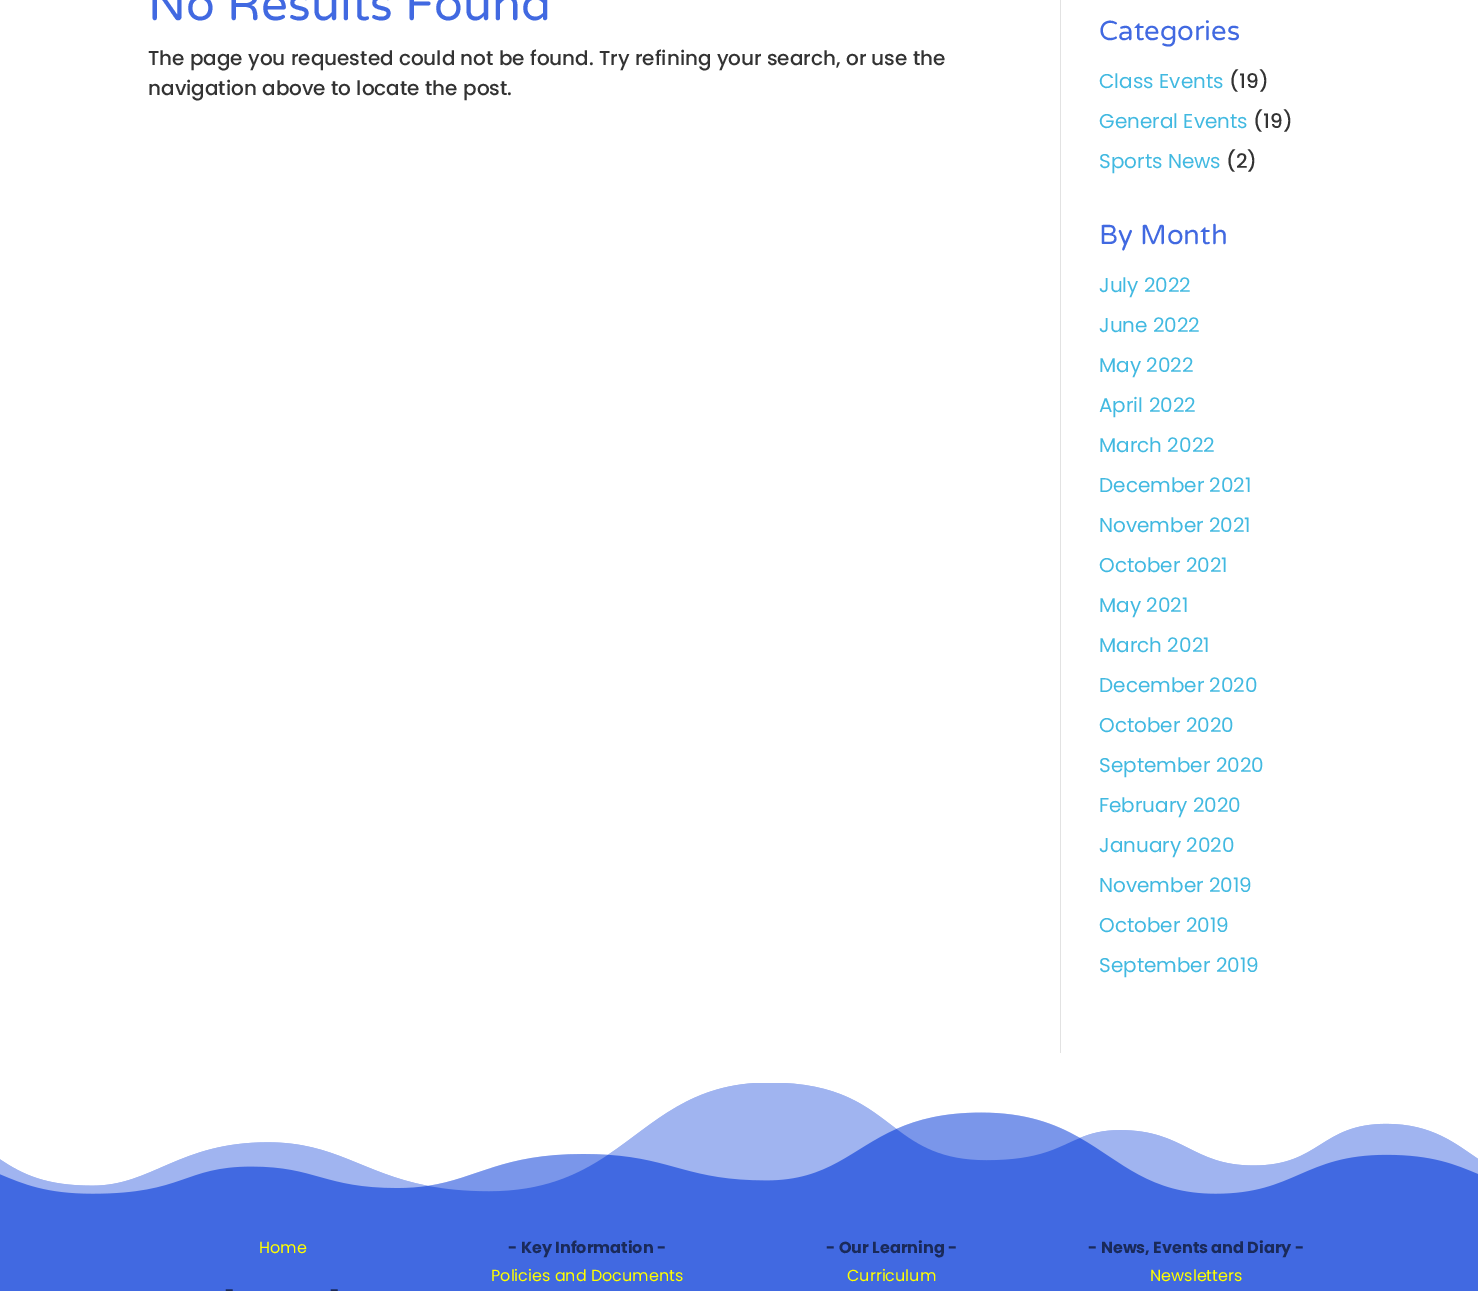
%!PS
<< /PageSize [1478 1291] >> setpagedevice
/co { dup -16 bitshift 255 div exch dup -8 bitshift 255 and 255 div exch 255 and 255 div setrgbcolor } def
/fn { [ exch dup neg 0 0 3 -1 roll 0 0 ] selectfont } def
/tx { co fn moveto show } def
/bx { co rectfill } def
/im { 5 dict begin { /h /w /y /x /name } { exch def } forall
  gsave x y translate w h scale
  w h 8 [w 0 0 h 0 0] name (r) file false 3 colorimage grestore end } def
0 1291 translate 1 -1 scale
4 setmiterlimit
0 0 1478 1291 16#FFFFFF bx
1060 0 1 1053 16#E2E2E2 bx
0 1083 1478 208 16#4169E1 bx
(media/1.raw) 0 1083 1478 111 im
(No Results Found) 148 20 /VarelaRound-Regular 47.5 16#4169E1 tx
(The page you requested could not be found. Try refining your search, or use the) 148 65 /Poppins-Medium 20 16#333333 tx
(navigation above to locate the post.) 148 95 /Poppins-Medium 20 16#333333 tx
(Categories) 1099 40 /VarelaRound-Regular 27.5 16#4169E1 tx
(Class Events) 1099 88 /Poppins-Regular 20 16#41B9E1 tx
(\(19\)) 1229 88 /Poppins-Medium 20 16#333333 tx
(General Events) 1099 128 /Poppins-Regular 20 16#41B9E1 tx
(\(19\)) 1253 128 /Poppins-Medium 20 16#333333 tx
(Sports News) 1099 168 /Poppins-Regular 20 16#41B9E1 tx
(\(2\)) 1226 168 /Poppins-Medium 20 16#333333 tx
(By Month) 1099 244 /VarelaRound-Regular 27.5 16#4169E1 tx
(July 2022) 1099 292 /Poppins-Regular 20 16#41B9E1 tx
(June 2022) 1099 332 /Poppins-Regular 20 16#41B9E1 tx
(May 2022) 1099 372 /Poppins-Regular 20 16#41B9E1 tx
(April 2022) 1099 412 /Poppins-Regular 20 16#41B9E1 tx
(March 2022) 1099 452 /Poppins-Regular 20 16#41B9E1 tx
(December 2021) 1099 492 /Poppins-Regular 20 16#41B9E1 tx
(November 2021) 1099 532 /Poppins-Regular 20 16#41B9E1 tx
(October 2021) 1099 572 /Poppins-Regular 20 16#41B9E1 tx
(May 2021) 1099 612 /Poppins-Regular 20 16#41B9E1 tx
(March 2021) 1099 652 /Poppins-Regular 20 16#41B9E1 tx
(December 2020) 1099 692 /Poppins-Regular 20 16#41B9E1 tx
(October 2020) 1099 732 /Poppins-Regular 20 16#41B9E1 tx
(September 2020) 1099 772 /Poppins-Regular 20 16#41B9E1 tx
(February 2020) 1099 812 /Poppins-Regular 20 16#41B9E1 tx
(January 2020) 1099 852 /Poppins-Regular 20 16#41B9E1 tx
(November 2019) 1099 892 /Poppins-Regular 20 16#41B9E1 tx
(October 2019) 1099 932 /Poppins-Regular 20 16#41B9E1 tx
(September 2019) 1099 972 /Poppins-Regular 20 16#41B9E1 tx
(Home) 259 1253 /Poppins-Regular 16 16#FFFF00 tx
(-) 225 1296 /Poppins-Bold 16 16#1A2A5A tx
(-) 330 1296 /Poppins-Bold 16 16#1A2A5A tx
(- Key Information -) 508 1253 /Poppins-Bold 16 16#1A2A5A tx
(Policies and Documents) 491 1281 /Poppins-Regular 16 16#FFFF00 tx
(- Our Learning -) 826 1253 /Poppins-Bold 16 16#1A2A5A tx
(Curriculum) 847 1281 /Poppins-Regular 16 16#FFFF00 tx
(- News, Events and Diary -) 1088 1253 /Poppins-Bold 16 16#1A2A5A tx
(Newsletters) 1150 1281 /Poppins-Regular 16 16#FFFF00 tx
showpage
